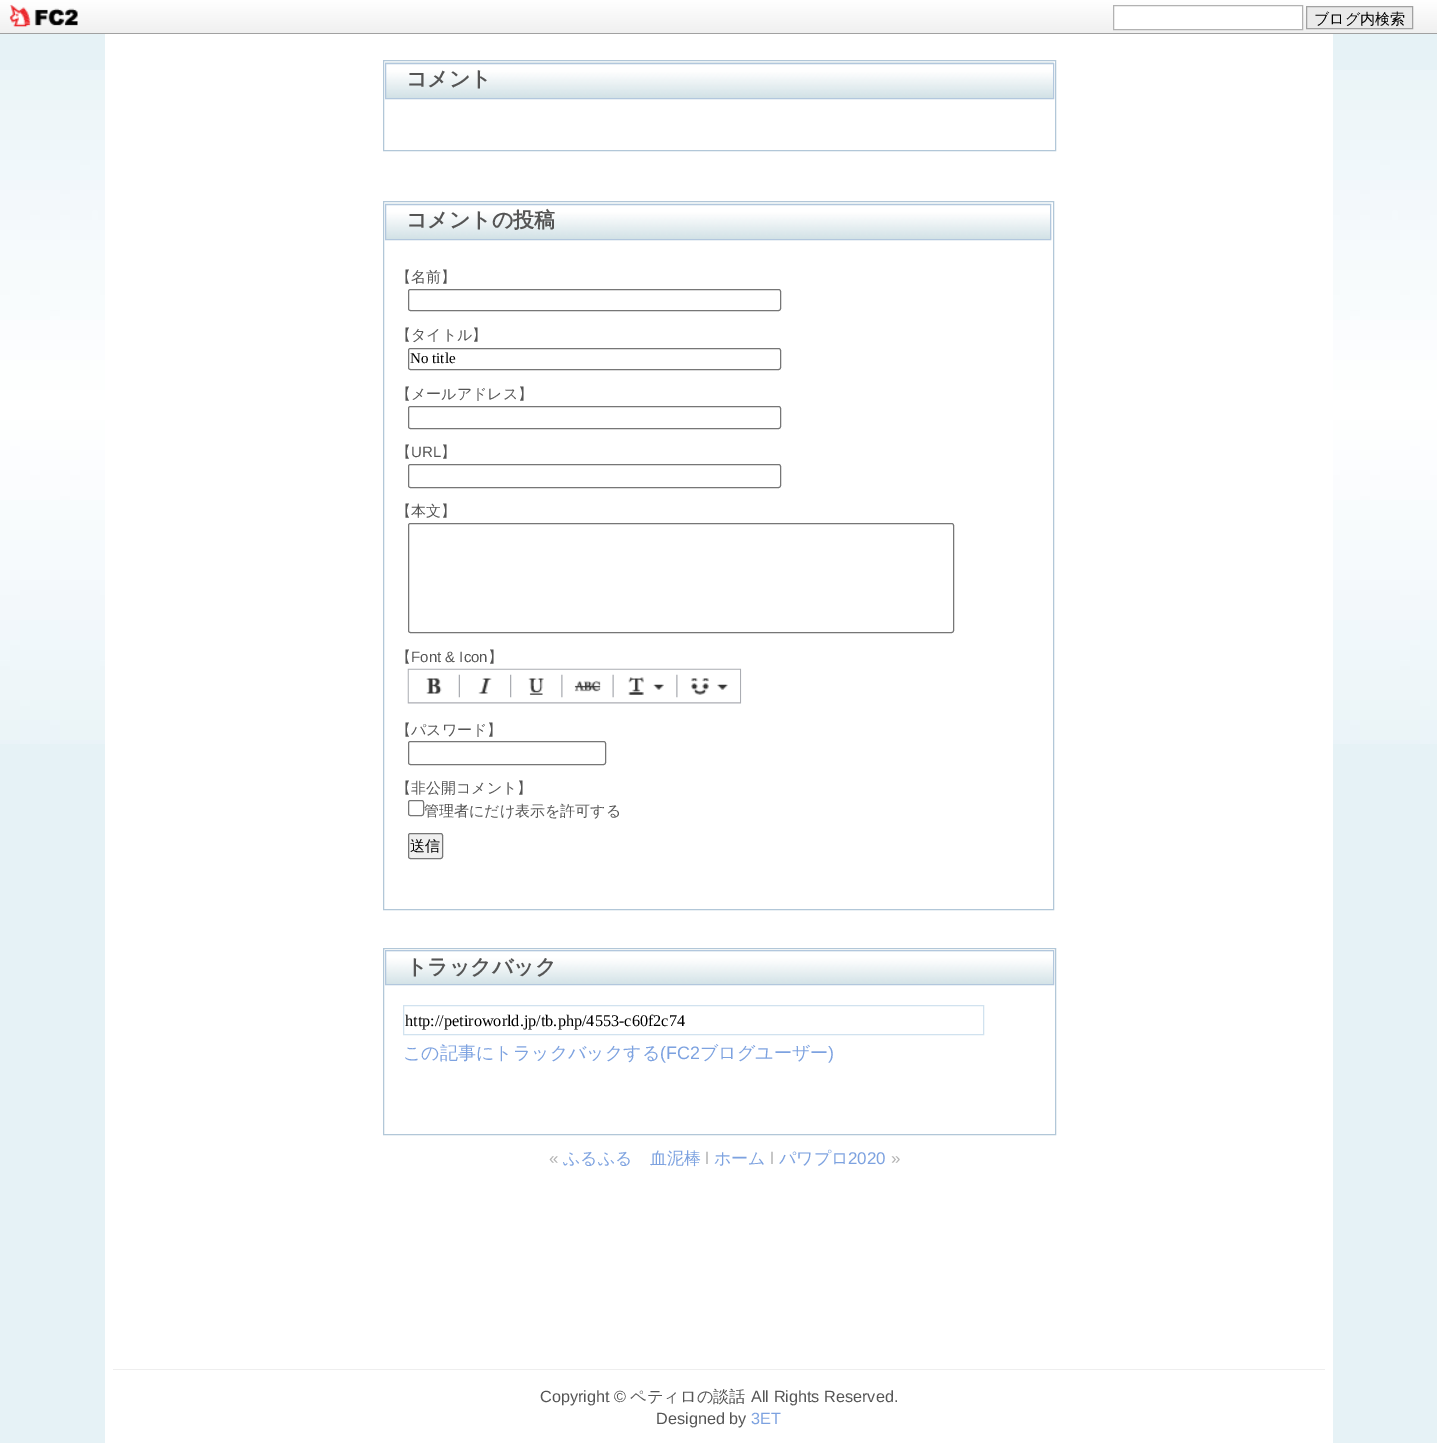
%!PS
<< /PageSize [1437 1443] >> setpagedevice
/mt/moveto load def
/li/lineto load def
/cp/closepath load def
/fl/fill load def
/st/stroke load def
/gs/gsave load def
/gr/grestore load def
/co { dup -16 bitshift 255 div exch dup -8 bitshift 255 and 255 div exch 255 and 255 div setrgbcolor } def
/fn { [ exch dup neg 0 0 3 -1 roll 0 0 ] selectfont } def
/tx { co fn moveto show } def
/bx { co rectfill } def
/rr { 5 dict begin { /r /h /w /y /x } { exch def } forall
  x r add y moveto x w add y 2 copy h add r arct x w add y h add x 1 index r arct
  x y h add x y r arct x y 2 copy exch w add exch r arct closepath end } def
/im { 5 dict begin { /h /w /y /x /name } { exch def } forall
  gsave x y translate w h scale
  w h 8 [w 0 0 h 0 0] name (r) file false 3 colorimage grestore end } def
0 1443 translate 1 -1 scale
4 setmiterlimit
0 0 1437 1443 16#E6F2F6 bx
(media/1.raw) 0 70 1437 674 im
gs 0 0 mt 1437 0 li 1437 33 li 0 33 li cp clip newpath
<< /ShadingType 2 /ColorSpace /DeviceRGB /Coords [0 0 0 33] /Extend [true true] /Function << /FunctionType 2 /Domain [0 1] /C0 [1 1 1] /C1 [.941 .941 .941] /N 1 >> >> shfill gr
0 33 1437 1 16#A1A1A1 bx
(media/2.raw) 9 4 69 23 im
16#FFFFFF co
1113.5 5.5 mt 1302.5 5.5 li 1302.5 29.5 li 1113.5 29.5 li cp gs fl gr
16#B2B2B2 co
st
16#EAEAEA co
1306.5 6.5 mt 1412.5 6.5 li 1412.5 28.5 li 1306.5 28.5 li cp gs fl gr
16#A1A1A1 co
st
105 34 1228 1409 16#FFFFFF bx
16#B2C7D8 co
383.5 60.5 672 90 rectstroke
(media/3.raw) 385 62 669 36 im
16#B2C7DD co
385.5 63.5 668 35 rectstroke
16#B2C7D8 co
383.5 201.5 670 708 rectstroke
(media/4.raw) 385 203 667 37 im
16#B2C7DD co
385.5 204.5 665 35 rectstroke
16#767676 co
408.5 289.5 372 21 2 rr st
408.5 348.5 372 21 2 rr st
408.5 406.5 372 22 2 rr st
408.5 464.5 372 23 2 rr st
408.5 523.5 545 109 2 rr st
(media/5.raw) 407 668 335 36 im
408.5 741.5 197 23 2 rr st
408.5 800.5 15 15 2 rr st
16#EFEFEF co
408.5 833.5 34 25 2 rr gs fl gr
16#767676 co
st
16#B2C7D8 co
383.5 948.5 672 186 rectstroke
(media/6.raw) 385 949 669 35 im
16#B2C7DD co
385.5 950.5 668 34 rectstroke
16#D1E2EF co
403.5 1005.5 580 29 rectstroke
113 1369 1212 1 16#EEEEEE bx
(ブログ内検索) 1314 24 /WenQuanYiZenHei-Medium 15 16#000000 tx
(コメント) 406 86 /WenQuanYiZenHei-Bold 21 16#555555 tx
(コメントの投稿) 406 227 /WenQuanYiZenHei-Bold 21 16#555555 tx
(【名前】) 396 282 /WenQuanYiZenHei-Medium 15 16#555555 tx
(【タイトル】) 396 340 /WenQuanYiZenHei-Medium 15 16#555555 tx
(No title) 410 363 /LiberationSerif-Regular 15 16#000000 tx
(【メールアドレス】) 396 399 /WenQuanYiZenHei-Medium 15 16#555555 tx
(【) 396 457 /WenQuanYiZenHei-Medium 15 16#555555 tx
(URL) 411 457 /LiberationSans-Regular 15 16#555555 tx
(】) 441 457 /WenQuanYiZenHei-Medium 15 16#555555 tx
(【本文】) 396 516 /WenQuanYiZenHei-Medium 15 16#555555 tx
(【) 396 662 /WenQuanYiZenHei-Medium 15 16#555555 tx
(Font & Icon) 411 662 /LiberationSans-Regular 15 16#555555 tx
(】) 488 662 /WenQuanYiZenHei-Medium 15 16#555555 tx
(【パスワード】) 396 735 /WenQuanYiZenHei-Medium 15 16#555555 tx
(【非公開コメント】) 396 793 /WenQuanYiZenHei-Medium 15 16#555555 tx
(管理者にだけ表示を許可する) 424 816 /WenQuanYiZenHei-Medium 15 16#555555 tx
(送信) 410 851 /WenQuanYiZenHei-Medium 15 16#000000 tx
(トラックバック) 406 974 /WenQuanYiZenHei-Bold 21 16#555555 tx
(http://petiroworld.jp/tb.php/4553-c60f2c74) 405 1026 /LiberationSerif-Regular 16.25 16#000000 tx
(この記事にトラックバックする) 403 1059 /WenQuanYiZenHei-Medium 18 16#7DA2E0 tx
(\(FC2) 660 1059 /LiberationSans-Regular 18 16#7DA2E0 tx
(ブログユーザー) 700 1059 /WenQuanYiZenHei-Medium 18 16#7DA2E0 tx
(\)) 828 1059 /LiberationSans-Regular 18 16#7DA2E0 tx
(«) 549 1164 /LiberationSans-Regular 17 16#B2B2B2 tx
(ふるふる　血泥棒) 563 1164 /WenQuanYiZenHei-Medium 17 16#7DA2E0 tx
(l) 705 1164 /LiberationSans-Regular 17 16#B2B2B2 tx
(ホーム) 714 1164 /WenQuanYiZenHei-Medium 17 16#7DA2E0 tx
(l) 770 1164 /LiberationSans-Regular 17 16#B2B2B2 tx
(パワプロ) 779 1164 /WenQuanYiZenHei-Medium 17 16#7DA2E0 tx
(2020) 848 1164 /LiberationSans-Regular 17 16#7DA2E0 tx
(») 891 1164 /LiberationSans-Regular 17 16#B2B2B2 tx
(Copyright ©) 540 1402 /LiberationSans-Regular 16.25 16#555555 tx
(ペティロの談話) 630 1402 /WenQuanYiZenHei-Medium 16.25 16#555555 tx
(All Rights Reserved.) 751 1402 /LiberationSans-Regular 16.25 16#555555 tx
(Designed by) 656 1424 /LiberationSans-Regular 16.25 16#555555 tx
(3ET) 751 1424 /LiberationSans-Regular 16.25 16#7DA2E0 tx
showpage
